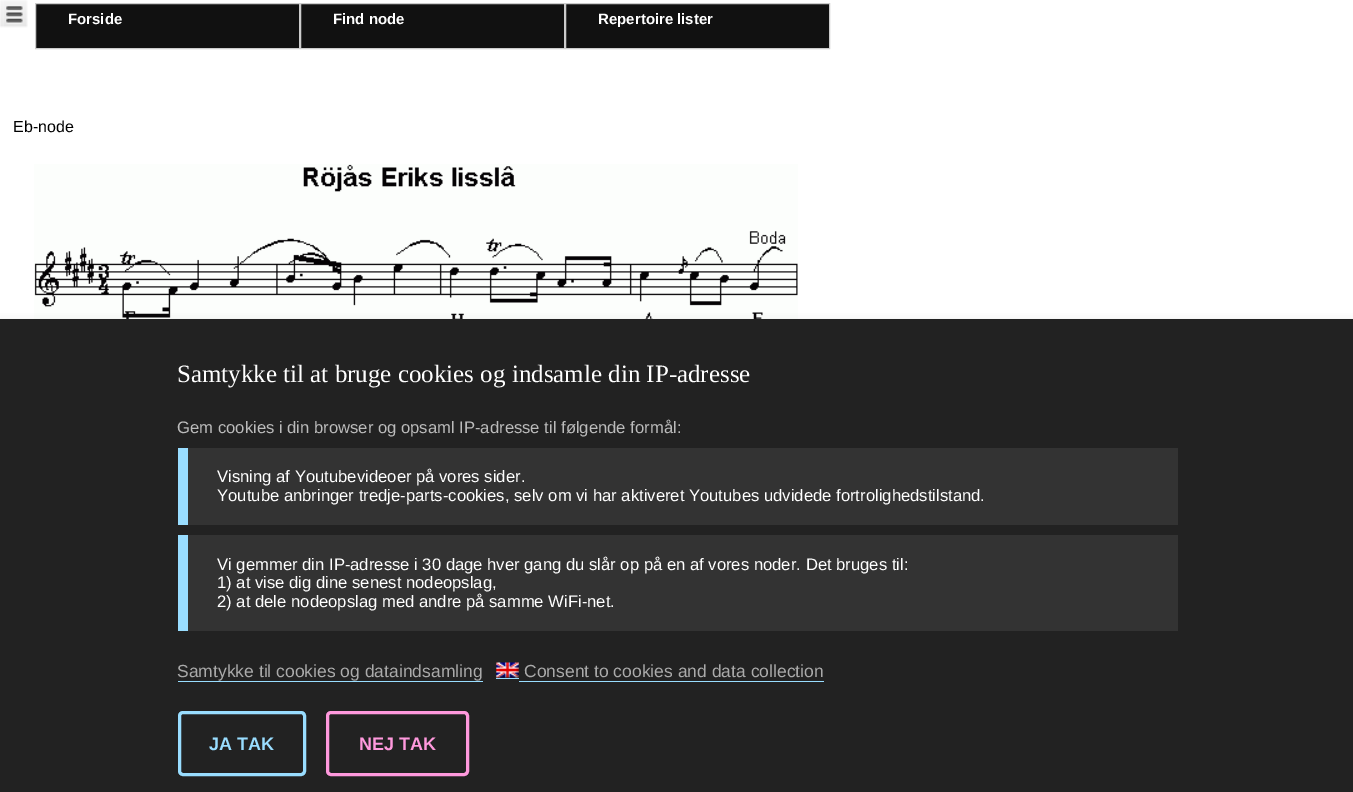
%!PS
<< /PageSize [1353 792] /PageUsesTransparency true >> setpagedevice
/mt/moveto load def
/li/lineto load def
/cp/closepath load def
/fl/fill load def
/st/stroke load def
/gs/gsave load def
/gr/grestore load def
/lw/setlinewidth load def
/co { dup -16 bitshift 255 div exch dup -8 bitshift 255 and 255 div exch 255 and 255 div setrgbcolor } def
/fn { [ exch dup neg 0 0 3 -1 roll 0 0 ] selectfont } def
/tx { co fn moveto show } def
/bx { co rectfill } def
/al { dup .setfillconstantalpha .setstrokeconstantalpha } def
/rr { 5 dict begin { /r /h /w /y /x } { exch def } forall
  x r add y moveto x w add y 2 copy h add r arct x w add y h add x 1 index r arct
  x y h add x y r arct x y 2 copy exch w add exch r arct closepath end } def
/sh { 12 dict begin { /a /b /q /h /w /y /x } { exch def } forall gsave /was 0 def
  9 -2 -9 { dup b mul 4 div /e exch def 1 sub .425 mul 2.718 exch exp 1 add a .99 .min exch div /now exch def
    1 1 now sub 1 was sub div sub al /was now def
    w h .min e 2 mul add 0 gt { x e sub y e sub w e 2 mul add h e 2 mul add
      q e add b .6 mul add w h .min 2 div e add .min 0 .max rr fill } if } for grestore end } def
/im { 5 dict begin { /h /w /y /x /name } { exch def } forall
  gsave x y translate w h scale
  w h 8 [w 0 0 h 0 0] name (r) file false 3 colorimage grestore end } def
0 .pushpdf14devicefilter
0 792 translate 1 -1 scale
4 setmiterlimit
0 0 1353 792 16#FFFFFF bx
(media/1.raw) 0 0 28 28 im
16#111111 co
35.5 3.5 mt 299.5 3.5 li 299.5 48.5 li 35.5 48.5 li cp gs fl gr
16#CCCCCC co
st
16#111111 co
300.5 3.5 mt 564.5 3.5 li 564.5 48.5 li 300.5 48.5 li cp gs fl gr
16#CCCCCC co
st
16#111111 co
565.5 3.5 mt 829.5 3.5 li 829.5 48.5 li 565.5 48.5 li cp gs fl gr
16#CCCCCC co
st
(media/2.raw) 34 164 764 155 im
16#808080 co
0 324 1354 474 0 5 .5 sh
0 319 1353 473 16#222222 bx
188 448 990 77 16#333333 bx
178 448 10 77 16#99DDFF bx
188 535 990 96 16#333333 bx
178 535 10 96 16#99DDFF bx
178 681 305 1 16#99DDFF bx
(media/3.raw) 496 662 23 16 im
496 678 23 1 16#99DDFF bx
519 681 305 1 16#99DDFF bx
3 lw
179.5 712.5 125 62 3.5 rr st
16#FF99DD co
327.5 712.5 140 62 3.5 rr st
(Forside) 68 24 /LiberationSans-Bold 15 16#FFFFFF tx
(Find node) 333 24 /LiberationSans-Bold 15 16#FFFFFF tx
(Repertoire lister) 598 24 /LiberationSans-Bold 15 16#FFFFFF tx
(Eb-node) 13 132 /LiberationSans-Regular 16 16#000000 tx
(Samtykke til at bruge cookies og indsamle din IP-adresse) 177 382 /LiberationSerif-Regular 25 16#FFFFFF tx
(Gem cookies i din browser og opsaml IP-adresse til følgende formål:) 177 433 /LiberationSans-Regular 16.65 16#BBBBBB tx
(Visning af Youtubevideoer på vores sider.) 217 482 /LiberationSans-Regular 16.65 16#FFFFFF tx
(Youtube anbringer tredje-parts-cookies, selv om vi har aktiveret Youtubes udvidede fortrolighedstilstand.) 217 501 /LiberationSans-Regular 16.65 16#FFFFFF tx
(Vi gemmer din IP-adresse i 30 dage hver gang du slår op på en af vores noder. Det bruges til:) 217 570 /LiberationSans-Regular 16.65 16#FFFFFF tx
(1\) at vise dig dine senest nodeopslag,) 217 588 /LiberationSans-Regular 16.65 16#FFFFFF tx
(2\) at dele nodeopslag med andre på samme WiFi-net.) 217 607 /LiberationSans-Regular 16.65 16#FFFFFF tx
(Samtykke til cookies og dataindsamling) 177 677 /LiberationSans-Regular 17.5 16#AAAAAA tx
(Consent to cookies and data collection) 524 677 /LiberationSans-Regular 17.5 16#AAAAAA tx
(JA TAK) 209 750 /LiberationSans-Bold 18 16#99DDFF tx
(NEJ TAK) 359 750 /LiberationSans-Bold 18 16#FF99DD tx
.poppdf14devicefilter showpage
